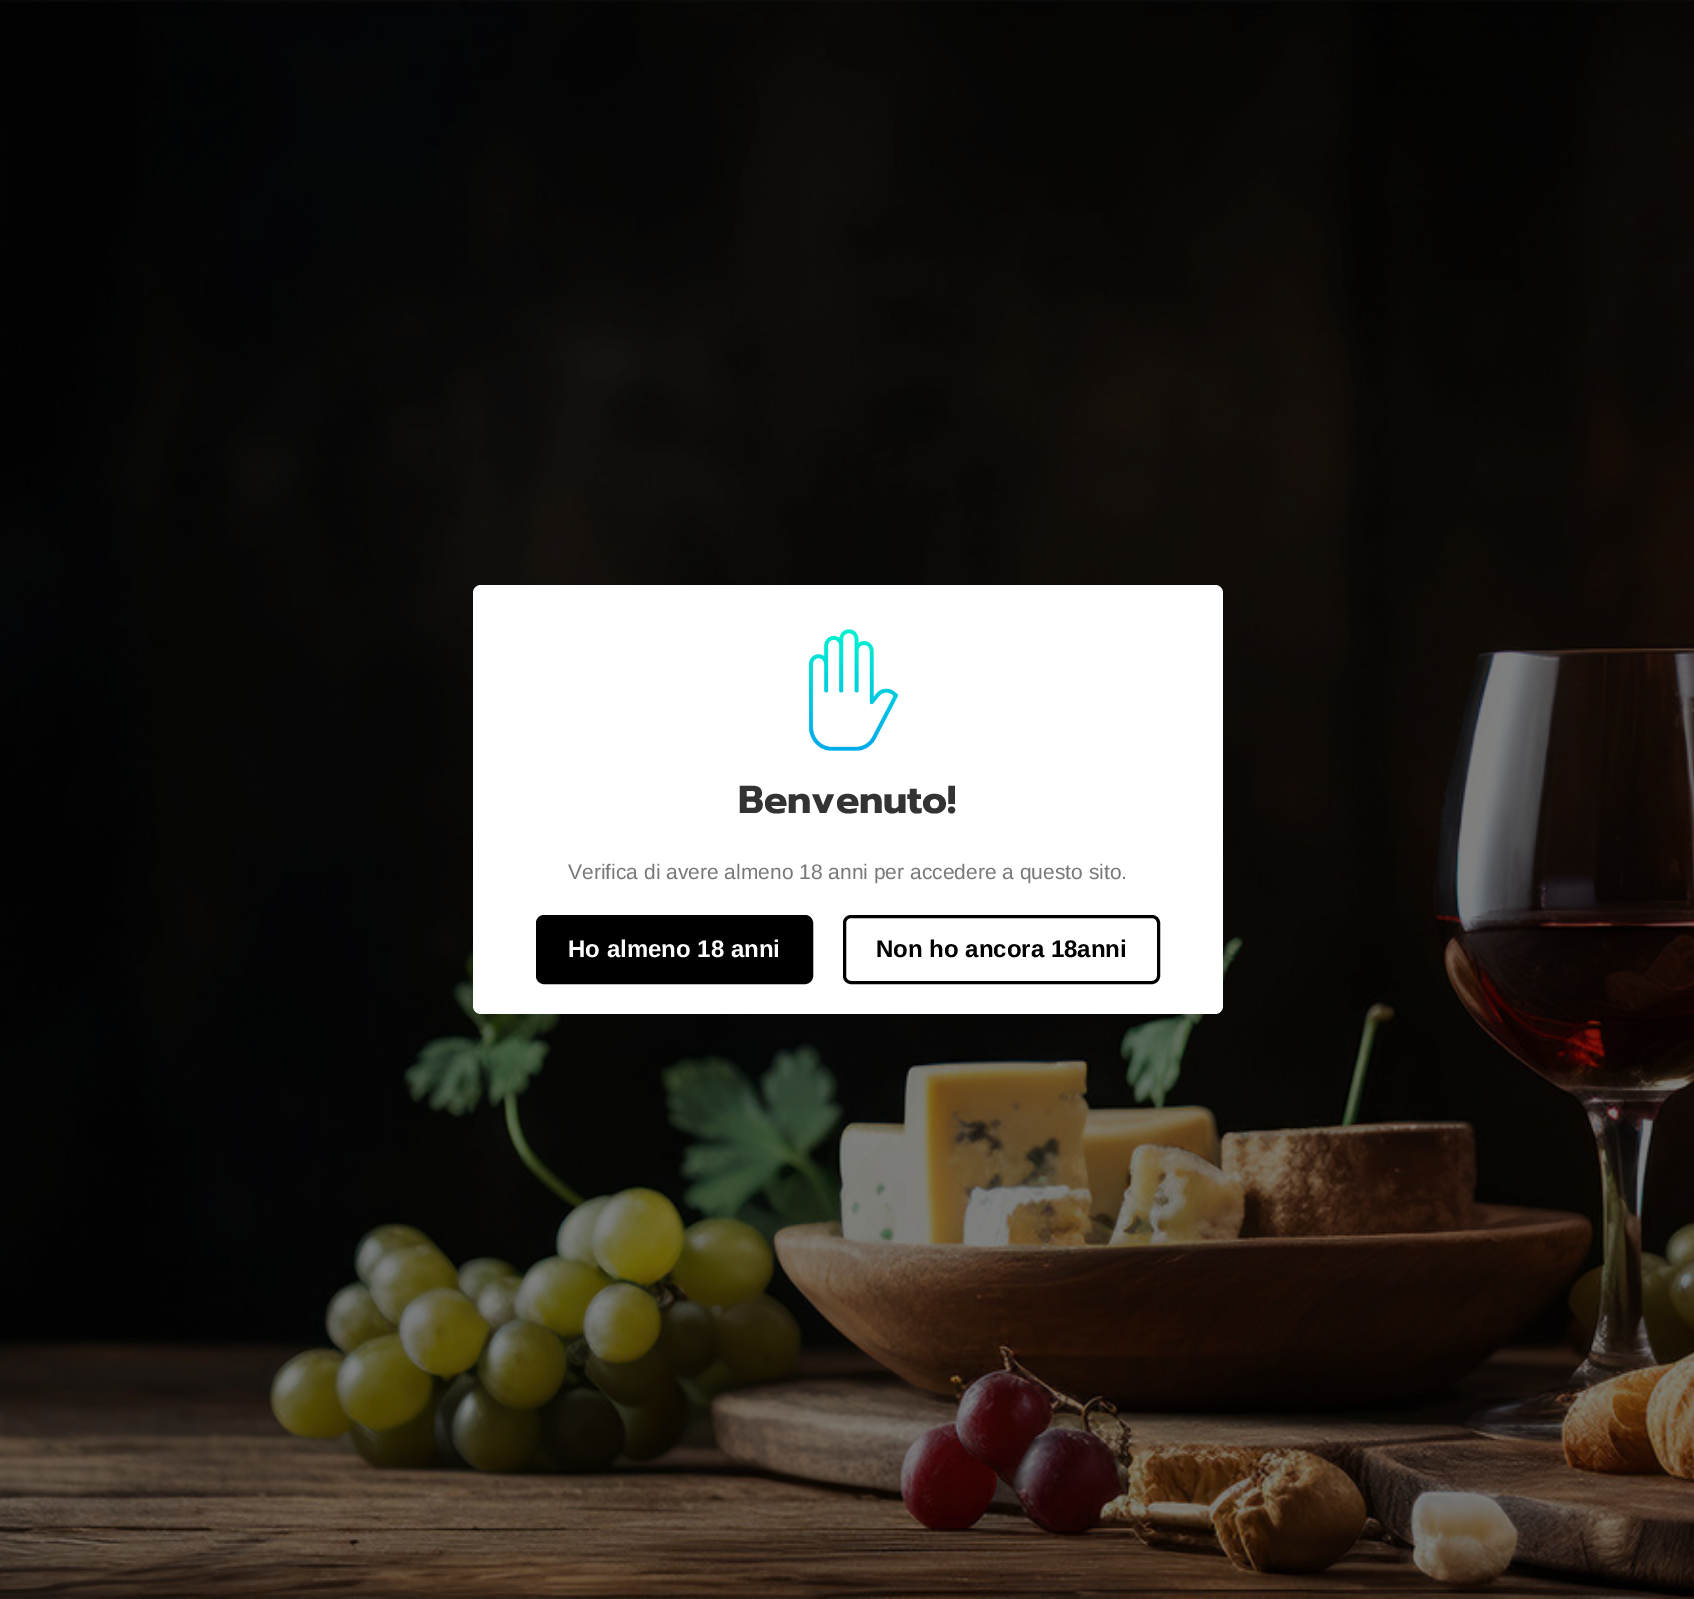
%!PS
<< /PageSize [1694 1599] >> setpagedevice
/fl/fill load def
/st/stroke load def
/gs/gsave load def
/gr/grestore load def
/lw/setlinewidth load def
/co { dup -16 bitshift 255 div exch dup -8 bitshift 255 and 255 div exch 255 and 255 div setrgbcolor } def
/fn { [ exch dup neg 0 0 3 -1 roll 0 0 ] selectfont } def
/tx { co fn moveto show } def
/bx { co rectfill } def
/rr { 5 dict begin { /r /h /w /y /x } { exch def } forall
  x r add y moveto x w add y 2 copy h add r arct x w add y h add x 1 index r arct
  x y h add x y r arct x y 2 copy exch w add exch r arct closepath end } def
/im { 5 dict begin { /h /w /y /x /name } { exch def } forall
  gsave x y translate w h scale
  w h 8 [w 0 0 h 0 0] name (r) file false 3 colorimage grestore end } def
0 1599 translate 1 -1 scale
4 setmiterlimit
0 0 1694 1599 16#FFFFFF bx
(media/1.raw) 0 0 1694 1599 im
473 585 750 429 8 rr fl
(media/2.raw) 809 629 90 122 im
16#000000 co
537.5 916.5 274 66 6.5 rr gs fl gr
3 lw
st
844.5 916.5 314 66 6.5 rr st
(Benvenuto!) 738 813 /Prompt-Bold 39 16#333333 tx
(Verifica di avere almeno 18 anni per accedere a questo sito.) 568 879 /Arimo-Regular 21 16#787878 tx
(Ho almeno 18 anni) 568 957 /LiberationSans-Bold 24 16#FFFFFF tx
(Non ho ancora 18anni) 876 957 /LiberationSans-Bold 24 16#000000 tx
showpage
